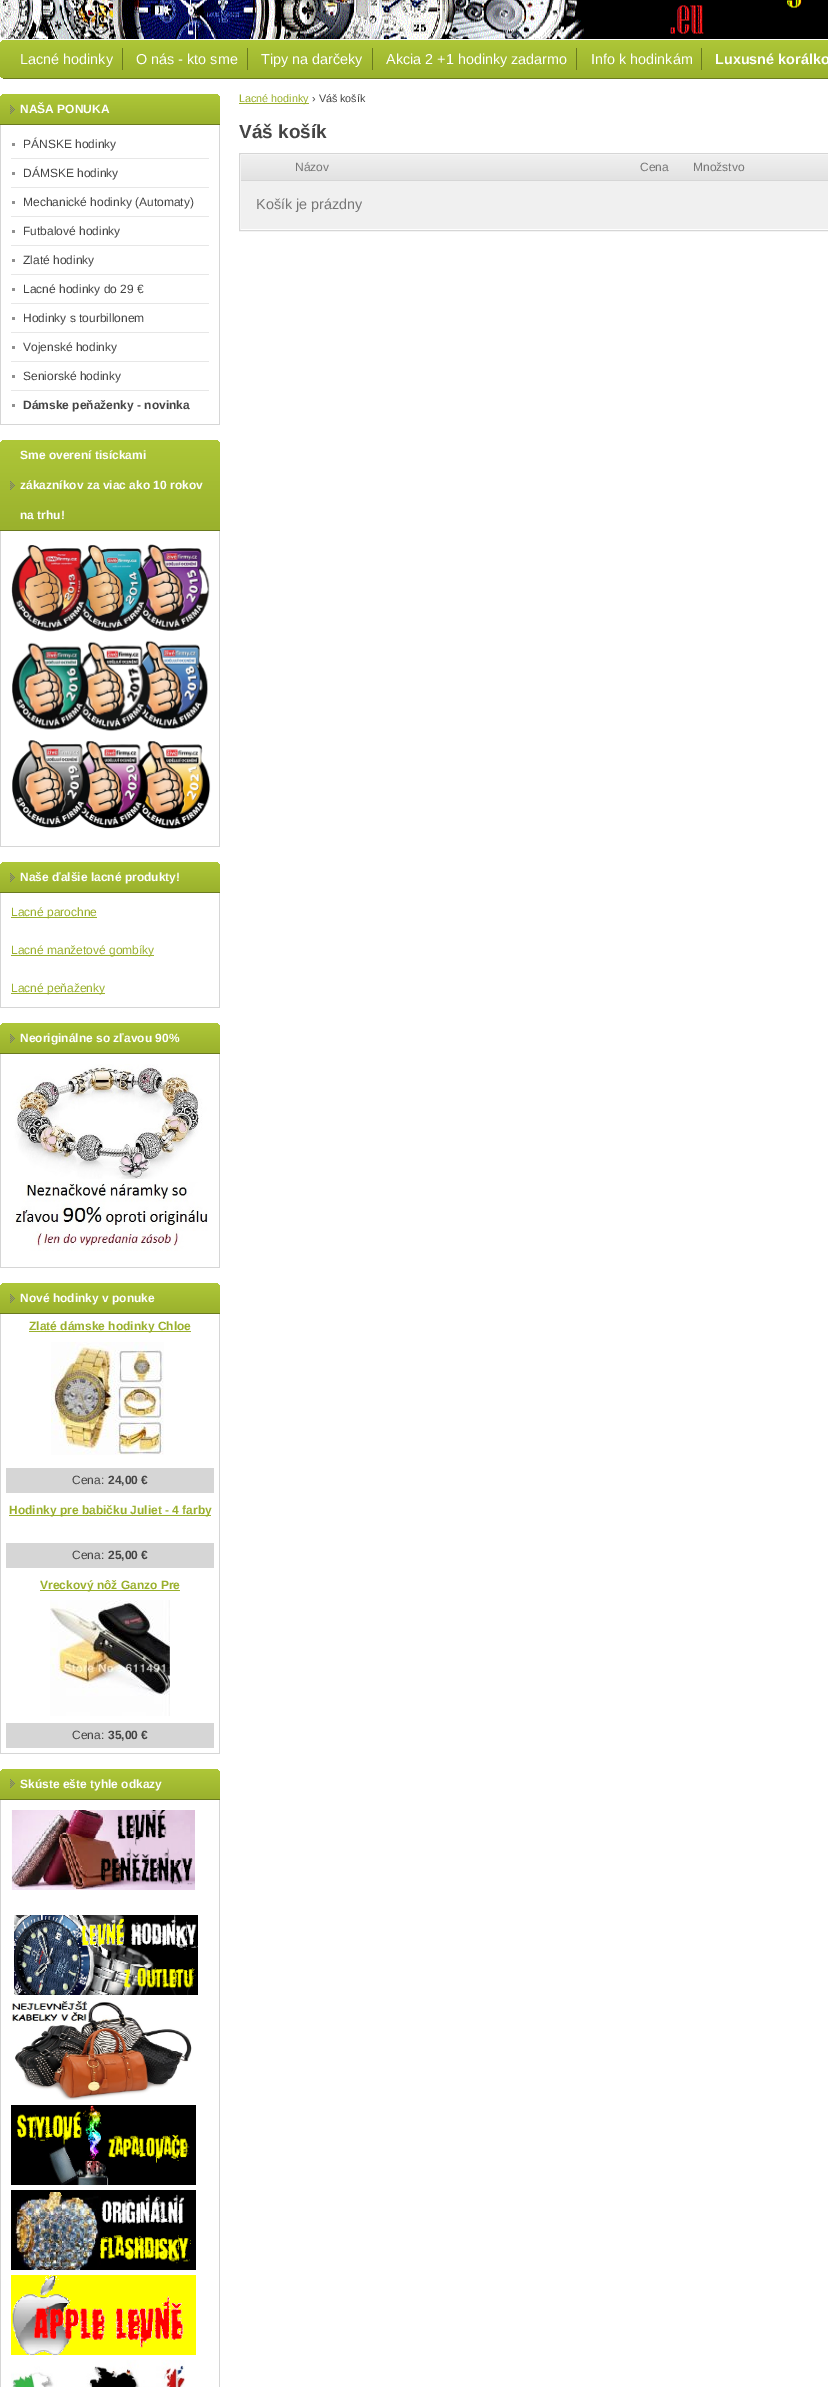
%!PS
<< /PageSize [828 2387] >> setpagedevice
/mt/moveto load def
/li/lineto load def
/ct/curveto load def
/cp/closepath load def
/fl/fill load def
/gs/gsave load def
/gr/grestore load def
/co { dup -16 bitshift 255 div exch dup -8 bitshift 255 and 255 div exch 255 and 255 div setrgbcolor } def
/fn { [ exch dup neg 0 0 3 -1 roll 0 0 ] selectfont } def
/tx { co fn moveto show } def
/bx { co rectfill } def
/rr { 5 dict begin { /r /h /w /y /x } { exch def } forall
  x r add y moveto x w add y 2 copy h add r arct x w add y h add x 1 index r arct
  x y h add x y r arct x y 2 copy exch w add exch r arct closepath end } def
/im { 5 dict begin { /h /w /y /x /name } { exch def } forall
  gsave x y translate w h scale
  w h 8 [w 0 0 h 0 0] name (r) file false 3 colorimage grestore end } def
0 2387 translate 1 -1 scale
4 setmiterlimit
0 0 828 2387 16#FFFFFF bx
(media/1.raw) 0 0 828 39 im
16#AEC738 co
0 40 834 39 6 rr fl
gs
0 40 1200 39 6 rr clip newpath
gs 6 40 mt 828 40 li 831.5 40 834 42.5 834 46 ct 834 78 li 0 78 li 0 46 li 0 42.5 2.5 40 6 40 ct cp clip newpath
<< /ShadingType 2 /ColorSpace /DeviceRGB /Coords [0 40 0 78] /Extend [true true] /Function << /FunctionType 2 /Domain [0 1] /C0 [.682 .78 .22] /C1 [.604 .694 .176] /N 1 >> >> shfill gr
gr
3 78 825 1 16#6A7A1F bx
122 48 1 22 16#6A7A1F bx
247 48 1 22 16#6A7A1F bx
372 48 1 22 16#6A7A1F bx
576 48 1 22 16#6A7A1F bx
701 48 1 22 16#6A7A1F bx
gs 6 94 mt 214 94 li 217.5 94 220 96.5 220 100 ct 220 124 li 0 124 li 0 100 li 0 96.5 2.5 94 6 94 ct cp clip newpath
<< /ShadingType 2 /ColorSpace /DeviceRGB /Coords [0 94 0 124] /Extend [true true] /Function << /FunctionType 2 /Domain [0 1] /C0 [.682 .78 .22] /C1 [.604 .694 .176] /N 1 >> >> shfill gr
0 124 220 1 16#6A7A1F bx
(media/2.raw) 10 105 5 9 im
219 125 1 300 16#D6D6D6 bx
0 424 220 1 16#D6D6D6 bx
0 125 1 300 16#D6D6D6 bx
12 143 3 3 16#909090 bx
11 158 198 1 16#E7E7E7 bx
12 172 3 3 16#909090 bx
11 187 198 1 16#E7E7E7 bx
12 201 3 3 16#909090 bx
11 216 198 1 16#E7E7E7 bx
12 230 3 3 16#909090 bx
11 245 198 1 16#E7E7E7 bx
12 259 3 3 16#909090 bx
11 274 198 1 16#E7E7E7 bx
12 288 3 3 16#909090 bx
11 303 198 1 16#E7E7E7 bx
12 317 3 3 16#909090 bx
11 332 198 1 16#E7E7E7 bx
12 346 3 3 16#909090 bx
11 361 198 1 16#E7E7E7 bx
12 375 3 3 16#909090 bx
11 390 198 1 16#E7E7E7 bx
12 404 3 3 16#909090 bx
gs 6 440 mt 214 440 li 217.5 440 220 442.5 220 446 ct 220 530 li 0 530 li 0 446 li 0 442.5 2.5 440 6 440 ct cp clip newpath
<< /ShadingType 2 /ColorSpace /DeviceRGB /Coords [0 440 0 530] /Extend [true true] /Function << /FunctionType 2 /Domain [0 1] /C0 [.682 .78 .22] /C1 [.604 .694 .176] /N 1 >> >> shfill gr
0 530 220 1 16#6A7A1F bx
(media/3.raw) 10 481 5 9 im
219 531 1 316 16#D6D6D6 bx
0 846 220 1 16#D6D6D6 bx
0 531 1 316 16#D6D6D6 bx
(media/4.raw) 11 544 200 286 im
gs 6 862 mt 214 862 li 217.5 862 220 864.5 220 868 ct 220 892 li 0 892 li 0 868 li 0 864.5 2.5 862 6 862 ct cp clip newpath
<< /ShadingType 2 /ColorSpace /DeviceRGB /Coords [0 862 0 892] /Extend [true true] /Function << /FunctionType 2 /Domain [0 1] /C0 [.682 .78 .22] /C1 [.604 .694 .176] /N 1 >> >> shfill gr
0 892 220 1 16#6A7A1F bx
(media/2.raw) 10 873 5 9 im
219 893 1 115 16#D6D6D6 bx
0 1007 220 1 16#D6D6D6 bx
0 893 1 115 16#D6D6D6 bx
11 917 86 1 16#9AB02D bx
11 955 143 1 16#9AB02D bx
11 993 94 1 16#9AB02D bx
gs 6 1023 mt 214 1023 li 217.5 1023 220 1025.5 220 1029 ct 220 1053 li 0 1053 li 0 1029 li 0 1025.5 2.5 1023 6 1023 ct cp clip newpath
<< /ShadingType 2 /ColorSpace /DeviceRGB /Coords [0 1023 0 1053] /Extend [true true] /Function << /FunctionType 2 /Domain [0 1] /C0 [.682 .78 .22] /C1 [.604 .694 .176] /N 1 >> >> shfill gr
0 1053 220 1 16#6A7A1F bx
(media/2.raw) 10 1034 5 9 im
219 1054 1 214 16#D6D6D6 bx
0 1267 220 1 16#D6D6D6 bx
0 1054 1 214 16#D6D6D6 bx
(media/5.raw) 12 1064 196 187 im
gs 6 1283 mt 214 1283 li 217.5 1283 220 1285.5 220 1289 ct 220 1313 li 0 1313 li 0 1289 li 0 1285.5 2.5 1283 6 1283 ct cp clip newpath
<< /ShadingType 2 /ColorSpace /DeviceRGB /Coords [0 1283 0 1313] /Extend [true true] /Function << /FunctionType 2 /Domain [0 1] /C0 [.682 .78 .22] /C1 [.604 .694 .176] /N 1 >> >> shfill gr
0 1313 220 1 16#6A7A1F bx
(media/2.raw) 10 1294 5 9 im
219 1314 1 440 16#D6D6D6 bx
0 1753 220 1 16#D6D6D6 bx
0 1314 1 440 16#D6D6D6 bx
29 1331 162 1 16#9AB02D bx
(media/6.raw) 51 1342 113 113 im
6 1468 208 25 16#D6D6D6 bx
9 1515 202 1 16#9AB02D bx
6 1543 208 25 16#D6D6D6 bx
40 1590 140 1 16#9AB02D bx
(media/7.raw) 50 1600 120 116 im
6 1723 208 25 16#D6D6D6 bx
gs 6 1769 mt 214 1769 li 217.5 1769 220 1771.5 220 1775 ct 220 1799 li 0 1799 li 0 1775 li 0 1771.5 2.5 1769 6 1769 ct cp clip newpath
<< /ShadingType 2 /ColorSpace /DeviceRGB /Coords [0 1769 0 1799] /Extend [true true] /Function << /FunctionType 2 /Domain [0 1] /C0 [.682 .78 .22] /C1 [.604 .694 .176] /N 1 >> >> shfill gr
0 1799 220 1 16#6A7A1F bx
(media/8.raw) 10 1779 5 9 im
219 1800 1 587 16#D6D6D6 bx
0 1800 1 587 16#D6D6D6 bx
(media/9.raw) 11 1810 184 80 im
(media/10.raw) 14 1915 184 80 im
(media/11.raw) 11 2000 181 100 im
(media/12.raw) 11 2105 185 80 im
(media/13.raw) 11 2190 185 80 im
(media/14.raw) 11 2275 185 80 im
(media/15.raw) 11 2360 174 27 im
239 103 70 1 16#9AB02D bx
16#D6D6D6 co
239.5 153.5 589 77 rectstroke
241 181 587 48 16#F0F0F0 bx
gs 241 155 mt 285 155 li 285 180 li 241 180 li cp clip newpath
<< /ShadingType 2 /ColorSpace /DeviceRGB /Coords [241 155 241 180] /Extend [true true] /Function << /FunctionType 2 /Domain [0 1] /C0 [.941 .941 .941] /C1 [.886 .886 .886] /N 1 >> >> shfill gr
gs 759 155 mt 828 155 li 828 180 li 759 180 li cp clip newpath
<< /ShadingType 2 /ColorSpace /DeviceRGB /Coords [759 155 759 180] /Extend [true true] /Function << /FunctionType 2 /Domain [0 1] /C0 [.941 .941 .941] /C1 [.886 .886 .886] /N 1 >> >> shfill gr
241 180 587 1 16#D6D6D6 bx
gs 285 155 mt 579 155 li 579 180 li 285 180 li cp clip newpath
<< /ShadingType 2 /ColorSpace /DeviceRGB /Coords [285 155 285 180] /Extend [true true] /Function << /FunctionType 2 /Domain [0 1] /C0 [.941 .941 .941] /C1 [.886 .886 .886] /N 1 >> >> shfill gr
gs 579 155 mt 679 155 li 679 180 li 579 180 li cp clip newpath
<< /ShadingType 2 /ColorSpace /DeviceRGB /Coords [579 155 579 180] /Extend [true true] /Function << /FunctionType 2 /Domain [0 1] /C0 [.941 .941 .941] /C1 [.886 .886 .886] /N 1 >> >> shfill gr
gs 679 155 mt 759 155 li 759 180 li 679 180 li cp clip newpath
<< /ShadingType 2 /ColorSpace /DeviceRGB /Coords [679 155 679 180] /Extend [true true] /Function << /FunctionType 2 /Domain [0 1] /C0 [.941 .941 .941] /C1 [.886 .886 .886] /N 1 >> >> shfill gr
(Lacné hodinky) 20 64 /LiberationSans-Regular 14.4 16#FFFFFF tx
(O nás - kto sme) 136 64 /LiberationSans-Regular 14.4 16#FFFFFF tx
(Tipy na darčeky) 261 64 /LiberationSans-Regular 14.4 16#FFFFFF tx
(Akcia 2 +1 hodinky zadarmo) 386 64 /LiberationSans-Regular 14.4 16#FFFFFF tx
(Info k hodinkám) 591 64 /LiberationSans-Regular 14.4 16#FFFFFF tx
(Luxusné korálko) 715 64 /LiberationSans-Bold 14.4 16#FFFFFF tx
(NAŠA PONUKA) 20 113 /LiberationSans-Bold 12 16#FFFFFF tx
(PÁNSKE hodinky) 23 148 /LiberationSans-Regular 12 16#444444 tx
(DÁMSKE hodinky) 23 177 /LiberationSans-Regular 12 16#444444 tx
(Mechanické hodinky \(Automaty\)) 23 206 /LiberationSans-Regular 12 16#444444 tx
(Futbalové hodinky) 23 235 /LiberationSans-Regular 12 16#444444 tx
(Zlaté hodinky) 23 264 /LiberationSans-Regular 12 16#444444 tx
(Lacné hodinky do 29 €) 23 293 /LiberationSans-Regular 12 16#444444 tx
(Hodinky s tourbillonem) 23 322 /LiberationSans-Regular 12 16#444444 tx
(Vojenské hodinky) 23 351 /LiberationSans-Regular 12 16#444444 tx
(Seniorské hodinky) 23 380 /LiberationSans-Regular 12 16#444444 tx
(Dámske peňaženky - novinka) 23 409 /LiberationSans-Bold 12 16#444444 tx
(Sme overení tisíckami) 20 459 /LiberationSans-Bold 12 16#FFFFFF tx
(zákazníkov za viac ako 10 rokov) 20 489 /LiberationSans-Bold 12 16#FFFFFF tx
(na trhu!) 20 519 /LiberationSans-Bold 12 16#FFFFFF tx
(Naše ďalšie lacné produkty!) 20 881 /LiberationSans-Bold 12 16#FFFFFF tx
(Lacné parochne) 11 916 /LiberationSans-Regular 12 16#9AB02D tx
(Lacné manžetové gombíky) 11 954 /LiberationSans-Regular 12 16#9AB02D tx
(Lacné peňaženky) 11 992 /LiberationSans-Regular 12 16#9AB02D tx
(Neoriginálne so zľavou 90%) 20 1042 /LiberationSans-Bold 12 16#FFFFFF tx
(Nové hodinky v ponuke) 20 1302 /LiberationSans-Bold 12 16#FFFFFF tx
(Zlaté dámske hodinky Chloe) 29 1330 /LiberationSans-Bold 12 16#9AB02D tx
(Cena:) 72 1484 /LiberationSans-Regular 12 16#444444 tx
(24,00 €) 108 1484 /LiberationSans-Bold 12 16#444444 tx
(Hodinky pre babičku Juliet - 4 farby) 9 1514 /LiberationSans-Bold 12 16#9AB02D tx
(Cena:) 72 1559 /LiberationSans-Regular 12 16#444444 tx
(25,00 €) 108 1559 /LiberationSans-Bold 12 16#444444 tx
(Vreckový nôž Ganzo Pre) 40 1589 /LiberationSans-Bold 12 16#9AB02D tx
(Cena:) 72 1739 /LiberationSans-Regular 12 16#444444 tx
(35,00 €) 108 1739 /LiberationSans-Bold 12 16#444444 tx
(Skúste ešte tyhle odkazy) 20 1788 /LiberationSans-Bold 12 16#FFFFFF tx
(Lacné hodinky) 239 102 /LiberationSans-Regular 10.75 16#9AB02D tx
(› Váš košík) 312 102 /LiberationSans-Regular 10.75 16#444444 tx
(Váš košík) 239 138 /LiberationSans-Bold 19 16#444444 tx
(Názov) 295 171 /LiberationSans-Regular 12 16#777777 tx
(Cena) 640 171 /LiberationSans-Regular 12 16#777777 tx
(Množstvo) 693 171 /LiberationSans-Regular 12 16#777777 tx
(Košík je prázdny) 256 209 /LiberationSans-Regular 14.4 16#777777 tx
showpage
